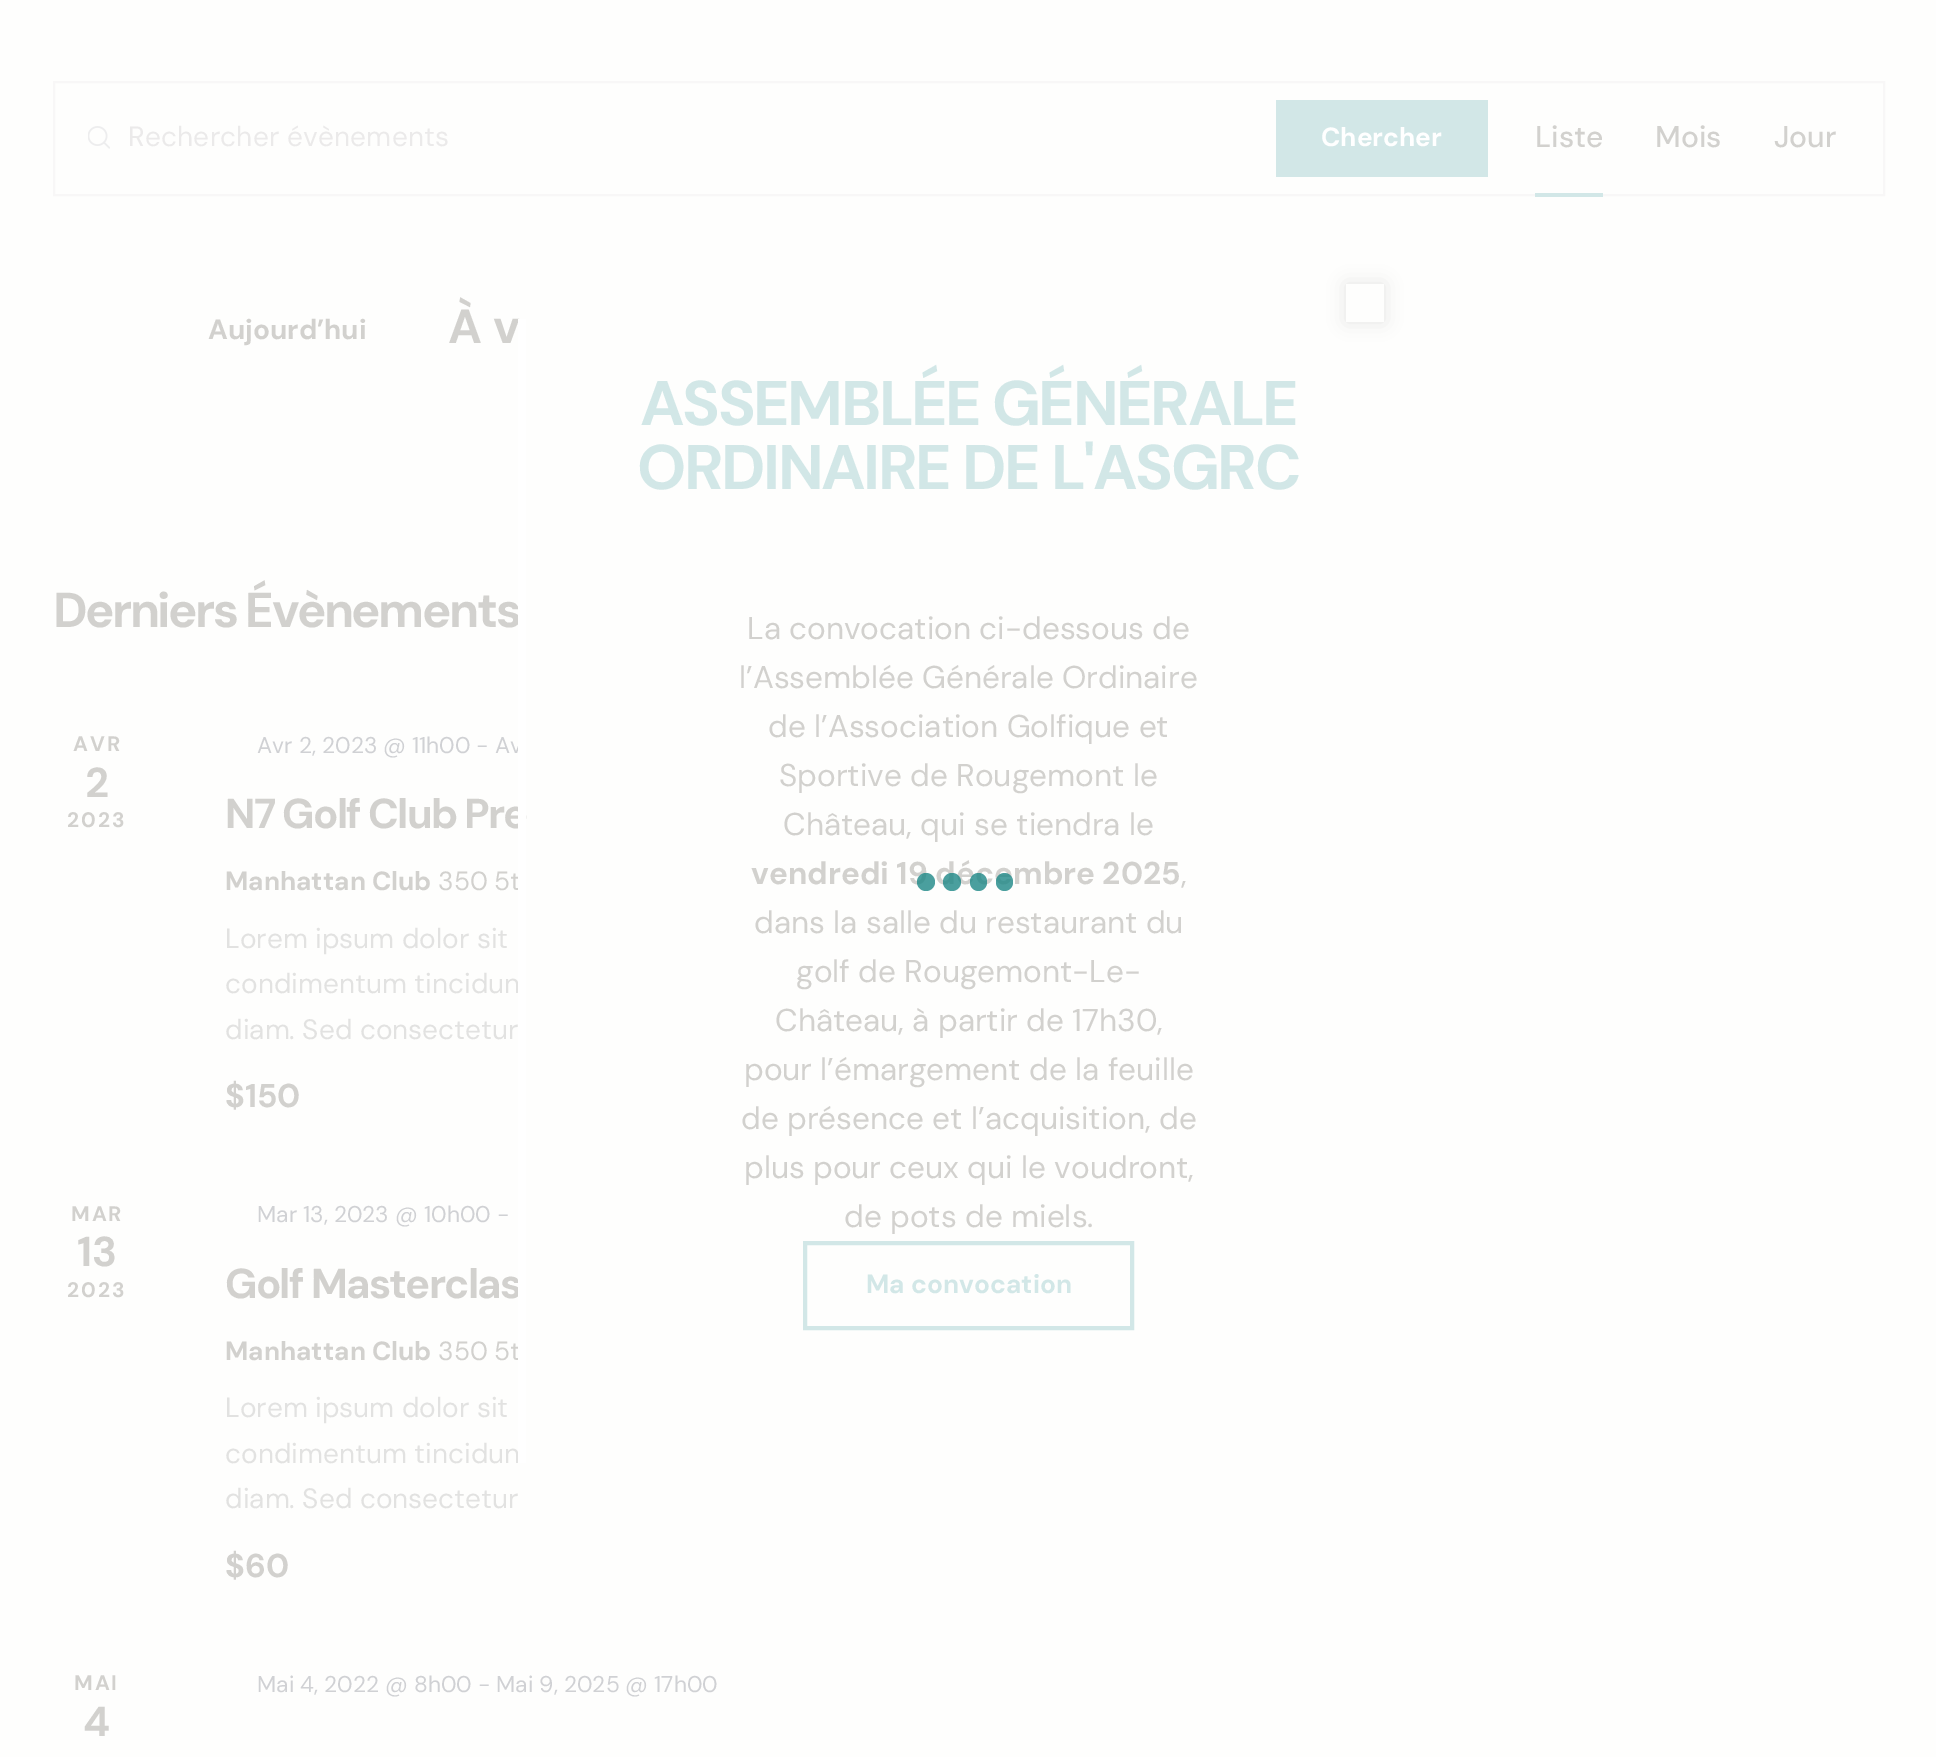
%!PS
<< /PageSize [1936 1757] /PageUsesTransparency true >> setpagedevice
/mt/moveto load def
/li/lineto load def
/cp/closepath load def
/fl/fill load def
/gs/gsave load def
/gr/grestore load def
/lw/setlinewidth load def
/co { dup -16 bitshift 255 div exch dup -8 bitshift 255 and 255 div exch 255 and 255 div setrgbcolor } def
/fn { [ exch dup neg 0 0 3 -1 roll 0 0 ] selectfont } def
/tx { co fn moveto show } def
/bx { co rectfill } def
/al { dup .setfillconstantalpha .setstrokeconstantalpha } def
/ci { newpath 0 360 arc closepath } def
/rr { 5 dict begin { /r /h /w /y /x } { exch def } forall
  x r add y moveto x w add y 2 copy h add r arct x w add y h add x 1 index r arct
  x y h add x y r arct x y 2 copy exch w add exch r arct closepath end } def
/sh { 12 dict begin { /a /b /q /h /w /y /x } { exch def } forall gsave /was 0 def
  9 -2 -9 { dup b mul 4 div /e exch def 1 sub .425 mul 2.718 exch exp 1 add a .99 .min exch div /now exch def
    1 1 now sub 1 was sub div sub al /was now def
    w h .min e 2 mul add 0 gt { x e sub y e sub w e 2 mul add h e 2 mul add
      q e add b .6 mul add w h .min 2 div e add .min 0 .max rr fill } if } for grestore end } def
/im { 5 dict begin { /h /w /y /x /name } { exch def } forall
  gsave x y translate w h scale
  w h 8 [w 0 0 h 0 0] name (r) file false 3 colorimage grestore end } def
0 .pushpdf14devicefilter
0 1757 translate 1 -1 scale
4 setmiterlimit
0 0 1936 1757 16#FEFEFD bx
16#F8F7F7 co
2 lw
54 82 1830 113 rectstroke
(media/1.raw) 88 126 22 23 im
1276 100 212 77 16#D2E7E7 bx
1535 193 68 4 16#D2E7E7 bx
gs
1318 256 mt 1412 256 li 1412 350 li 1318 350 li cp 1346 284 mt 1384 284 li 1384 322 li 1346 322 li cp eoclip newpath
16#CCCCCC co
1346 284 38 38 0 9 .5 sh
gr
4 lw
805 1243 327 85 rectstroke
/DMSans-Regular 28 fn
16#EBEAEA co
128 146 mt .2 0 (Rechercher évènements) ashow
(Chercher) 1321 146 /DMSans-Bold 26.25 16#FFFFFF tx
(Liste) 1535 147 /DMSans-Medium 30 16#D2D1CE tx
(Mois) 1655 147 /DMSans-Medium 30 16#D2D1CE tx
(Jour) 1774 147 /DMSans-Medium 30 16#D2D1CE tx
(Aujourd’hui) 208 339 /DMSans-Bold 28 16#D2D1CE tx
(À v) 448 343 /DMSans-Bold 48 16#D2D1CE tx
/DMSans-Bold 49 fn
53 627 mt -2.5 0 (Derniers Évènements) ashow
/DMSans-Bold 21 fn
73 751 mt 2 0 (AVR) ashow
(2) 85 797 /DMSans-Bold 41.75 16#D2D1CE tx
/DMSans-Bold 21 fn
67 827 mt 2 0 (2023) ashow
(Avr 2, 2023 @ 11h00 - Av) 257 753 /DMSans-Regular 22.75 16#D0D1D4 tx
/DMSans-Bold 41.75 fn
16#D2D1CE co
225 828 mt -1.75 0 (N7 Golf Club Pre) ashow
(Manhattan Club) 225 890 /DMSans-Bold 26.25 16#D2D1CE tx
(350 5t) 438 890 /DMSans-Regular 26.25 16#D2D1CE tx
(Lorem ipsum dolor sit) 225 948 /DMSans-Regular 28 16#E2E2E1 tx
(condimentum tincidun) 225 993 /DMSans-Regular 28 16#E2E2E1 tx
(diam. Sed consectetur) 225 1039 /DMSans-Regular 28 16#E2E2E1 tx
($150) 225 1107 /DMSans-Bold 33 16#D2D1CE tx
/DMSans-Bold 21 fn
71 1221 mt 2 0 (MAR) ashow
(13) 77 1266 /DMSans-Bold 41.75 16#D2D1CE tx
/DMSans-Bold 21 fn
67 1297 mt 2 0 (2023) ashow
(Mar 13, 2023 @ 10h00 -) 257 1222 /DMSans-Regular 22.75 16#D0D1D4 tx
/DMSans-Bold 41.75 fn
16#D2D1CE co
225 1298 mt -1.75 0 (Golf Masterclas) ashow
(Manhattan Club) 225 1360 /DMSans-Bold 26.25 16#D2D1CE tx
(350 5t) 438 1360 /DMSans-Regular 26.25 16#D2D1CE tx
(Lorem ipsum dolor sit) 225 1417 /DMSans-Regular 28 16#E2E2E1 tx
(condimentum tincidun) 225 1463 /DMSans-Regular 28 16#E2E2E1 tx
(diam. Sed consectetur) 225 1508 /DMSans-Regular 28 16#E2E2E1 tx
($60) 225 1577 /DMSans-Bold 33 16#D2D1CE tx
/DMSans-Bold 21 fn
74 1690 mt 2 0 (MAI) ashow
(4) 83 1736 /DMSans-Bold 41.75 16#D2D1CE tx
(Mai 4, 2022 @ 8h00 - Mai 9, 2025 @ 17h00) 257 1692 /DMSans-Regular 22.75 16#D0D1D4 tx
518 319 8 1144 16#FFFFFF bx
/DMSans-Bold 63 fn
16#D2E7E7 co
640 425 mt -2.5 0 (ASSEMBLÉE GÉNÉRALE) ashow
637 489 mt -2.5 0 (ORDINAIRE DE L'ASGRC) ashow
(La convocation ci-dessous de) 747 639 /DMSans-Regular 31.5 16#D2D1CE tx
(l’Assemblée Générale Ordinaire) 739 688 /DMSans-Regular 31.5 16#D2D1CE tx
(de l’Association Golfique et) 768 737 /DMSans-Regular 31.5 16#D2D1CE tx
(Sportive de Rougemont le) 779 786 /DMSans-Regular 31.5 16#D2D1CE tx
(Château, qui se tiendra le) 783 835 /DMSans-Regular 31.5 16#D2D1CE tx
(vendredi 19 décembre 2025) 751 884 /DMSans-Bold 31.5 16#D2D1CE tx
(,) 1181 884 /DMSans-Regular 31.5 16#D2D1CE tx
(dans la salle du restaurant du) 754 933 /DMSans-Regular 31.5 16#D2D1CE tx
(golf de Rougemont-Le-) 796 982 /DMSans-Regular 31.5 16#D2D1CE tx
(Château, à partir de 17h30,) 775 1031 /DMSans-Regular 31.5 16#D2D1CE tx
(pour l’émargement de la feuille) 744 1080 /DMSans-Regular 31.5 16#D2D1CE tx
(de présence et l’acquisition, de) 741 1129 /DMSans-Regular 31.5 16#D2D1CE tx
(plus pour ceux qui le voudront,) 744 1178 /DMSans-Regular 31.5 16#D2D1CE tx
(de pots de miels.) 844 1227 /DMSans-Regular 31.5 16#D2D1CE tx
(Ma convocation) 866 1293 /DMSans-Bold 26.25 16#D2E7E7 tx
0.8 al
16#1D8786 co
926 882 9 ci fl
952 882 9 ci fl
970 873 17 18 8.5 rr fl
996 873 17 18 8.5 rr fl
.poppdf14devicefilter showpage
